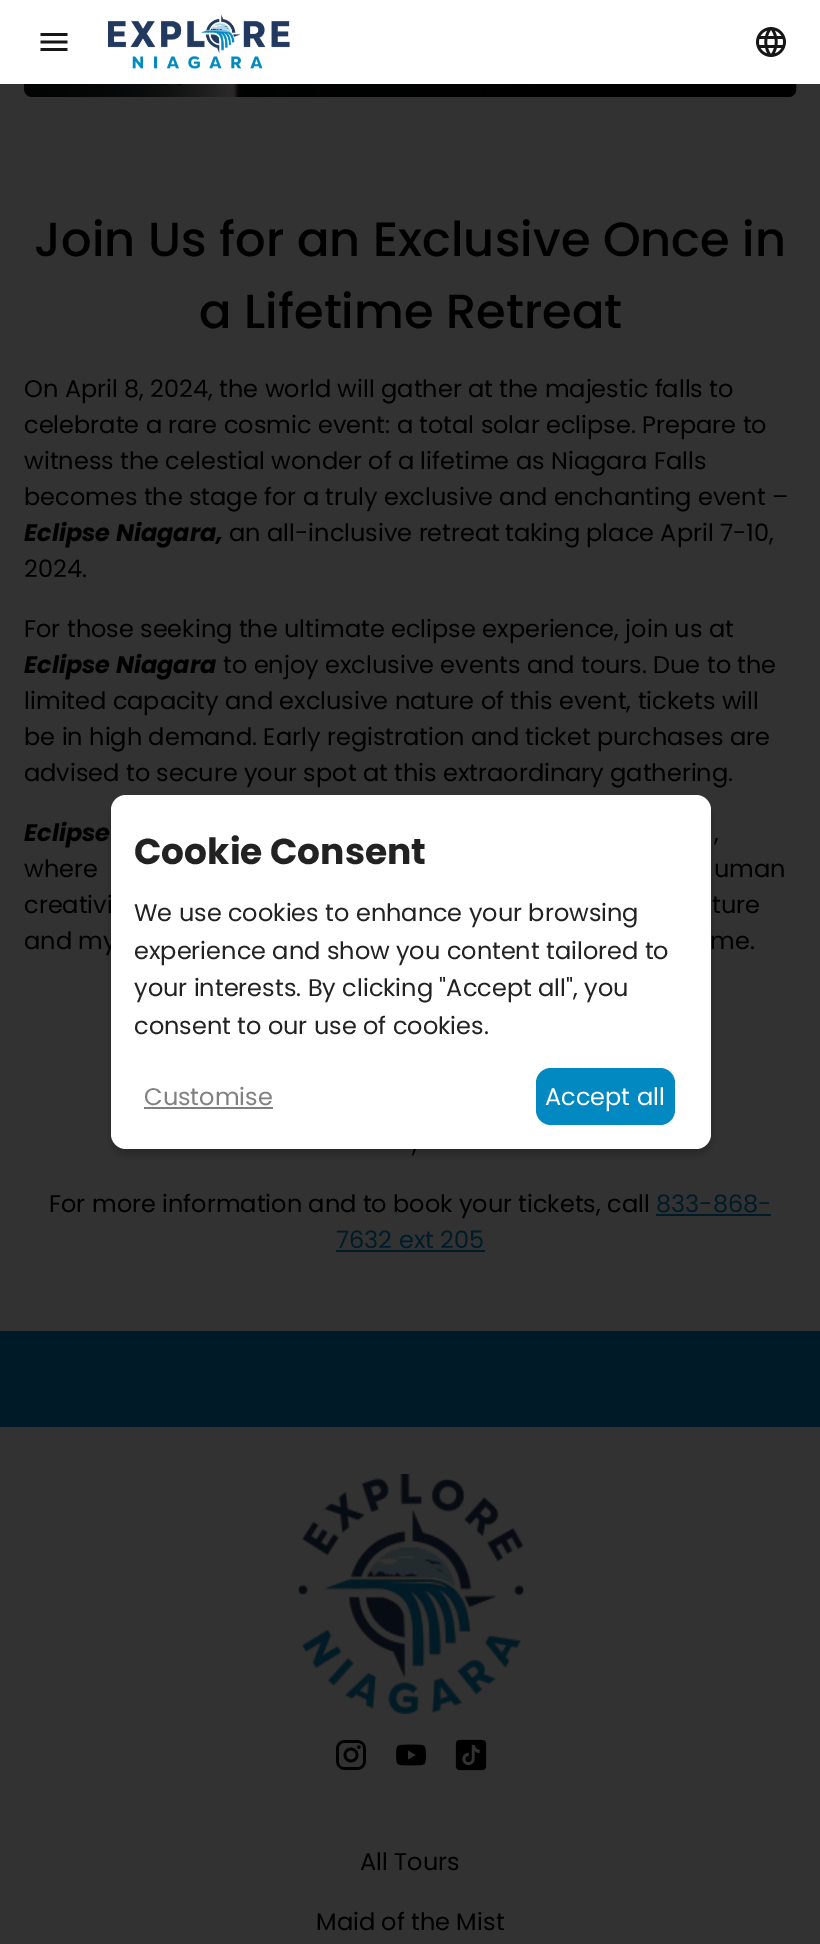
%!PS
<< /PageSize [820 1944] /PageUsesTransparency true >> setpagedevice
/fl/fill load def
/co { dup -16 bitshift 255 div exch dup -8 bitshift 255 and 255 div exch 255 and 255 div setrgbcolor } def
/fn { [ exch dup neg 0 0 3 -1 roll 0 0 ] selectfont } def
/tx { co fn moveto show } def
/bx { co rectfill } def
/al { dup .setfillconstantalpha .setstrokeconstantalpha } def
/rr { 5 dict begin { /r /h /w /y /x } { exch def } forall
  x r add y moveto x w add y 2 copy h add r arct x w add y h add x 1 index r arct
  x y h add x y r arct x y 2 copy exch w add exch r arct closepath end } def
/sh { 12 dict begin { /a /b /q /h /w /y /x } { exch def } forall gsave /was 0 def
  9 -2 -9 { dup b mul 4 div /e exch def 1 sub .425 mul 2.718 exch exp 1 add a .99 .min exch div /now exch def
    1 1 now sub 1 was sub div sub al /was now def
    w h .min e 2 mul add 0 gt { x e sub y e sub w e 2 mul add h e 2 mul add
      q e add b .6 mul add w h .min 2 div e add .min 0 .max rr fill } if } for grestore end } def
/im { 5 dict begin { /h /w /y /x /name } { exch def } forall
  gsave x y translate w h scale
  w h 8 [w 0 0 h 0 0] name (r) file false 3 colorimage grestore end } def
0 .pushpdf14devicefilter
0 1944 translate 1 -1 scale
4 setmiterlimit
0 0 820 1944 16#323232 bx
0 0 820 84 16#FFFFFF bx
(media/1.raw) 40 33 28 18 im
(media/2.raw) 108 14 182 55 im
(media/3.raw) 756 27 30 30 im
(media/4.raw) 24 84 773 13 im
656 1214 115 2 16#001B27 bx
336 1250 149 2 16#001B27 bx
0 1331 820 96 16#001B27 bx
(media/5.raw) 298 1474 226 240 im
(media/6.raw) 336 1740 30 30 im
(media/7.raw) 396 1744 30 22 im
(media/8.raw) 455 1739 32 32 im
16#000000 co
111 801 600 354 15 4.5 .2 sh
(Join Us for an Exclusive Once in) 34 256 /Poppins-Medium 48 16#000000 tx
(a Lifetime Retreat) 199 328 /Poppins-Medium 48 16#000000 tx
(On April 8, 2024, the world will gather at the majestic falls to) 24 397 /Poppins-Regular 24 16#000000 tx
(celebrate a rare cosmic event: a total solar eclipse. Prepare to) 24 433 /Poppins-Regular 24 16#000000 tx
(witness the celestial wonder of a lifetime as Niagara Falls) 24 469 /Poppins-Regular 24 16#000000 tx
(becomes the stage for a truly exclusive and enchanting event –) 24 505 /Poppins-Regular 24 16#000000 tx
(Eclipse Niagara,) 24 541 /Poppins-BoldItalic 24 16#000000 tx
(an all-inclusive retreat) 229 541 /Poppins-Regular 24 16#000000 tx
(taking place April 7-10,) 505 541 /Poppins-Regular 24 16#000000 tx
(2024.) 24 577 /Poppins-Regular 24 16#000000 tx
(For those seeking the ultimate eclipse experience, join us at) 24 637 /Poppins-Regular 24 16#000000 tx
(Eclipse Niagara) 24 673 /Poppins-BoldItalic 24 16#000000 tx
(to enjoy exclusive events and tours. Due to the) 223 673 /Poppins-Regular 24 16#000000 tx
(limited capacity and exclusive nature of this event, tickets will) 24 709 /Poppins-Regular 24 16#000000 tx
(be in high demand. Early registration and ticket purchases are) 24 745 /Poppins-Regular 24 16#000000 tx
(advised to secure your spot at this extraordinary gathering.) 24 781 /Poppins-Regular 24 16#000000 tx
(Eclipse) 24 841 /Poppins-BoldItalic 24 16#000000 tx
(,) 714 841 /Poppins-Regular 24 16#000000 tx
(where) 24 877 /Poppins-Regular 24 16#000000 tx
(uman) 714 877 /Poppins-Regular 24 16#000000 tx
(creativi) 24 913 /Poppins-Regular 24 16#000000 tx
(ture) 712 913 /Poppins-Regular 24 16#000000 tx
(and my) 24 949 /Poppins-Regular 24 16#000000 tx
(me.) 710 949 /Poppins-Regular 24 16#000000 tx
(,) 412 1152 /Poppins-Regular 24 16#000000 tx
(For more information and to book your tickets, call) 49 1212 /Poppins-Regular 24 16#000000 tx
(833-868-) 656 1212 /Poppins-Regular 24 16#001B27 tx
(7632 ext 205) 336 1248 /Poppins-Regular 24 16#001B27 tx
(All Tours) 360 1870 /Poppins-Regular 24 16#000000 tx
(Maid of the Mist) 316 1930 /Poppins-Regular 24 16#000000 tx
16#FFFFFF co
111 795 600 354 15 rr fl
(Cookie Consent) 134 864 /Poppins-Bold 36 16#222222 tx
(We use cookies to enhance your browsing) 134 921 /Poppins-Regular 24 16#222222 tx
(experience and show you content tailored to) 134 959 /Poppins-Regular 24 16#222222 tx
(your interests. By clicking "Accept all", you) 134 996 /Poppins-Regular 24 16#222222 tx
(consent to our use of cookies.) 134 1034 /Poppins-Regular 24 16#222222 tx
(Customise) 144 1105 /Poppins-Regular 24 16#808080 tx
144 1107 129 2 16#808080 bx
16#0289C1 co
536 1068 139 57 15 rr fl
(Accept all) 545 1105 /Poppins-Regular 24 16#FFFFFF tx
.poppdf14devicefilter showpage
